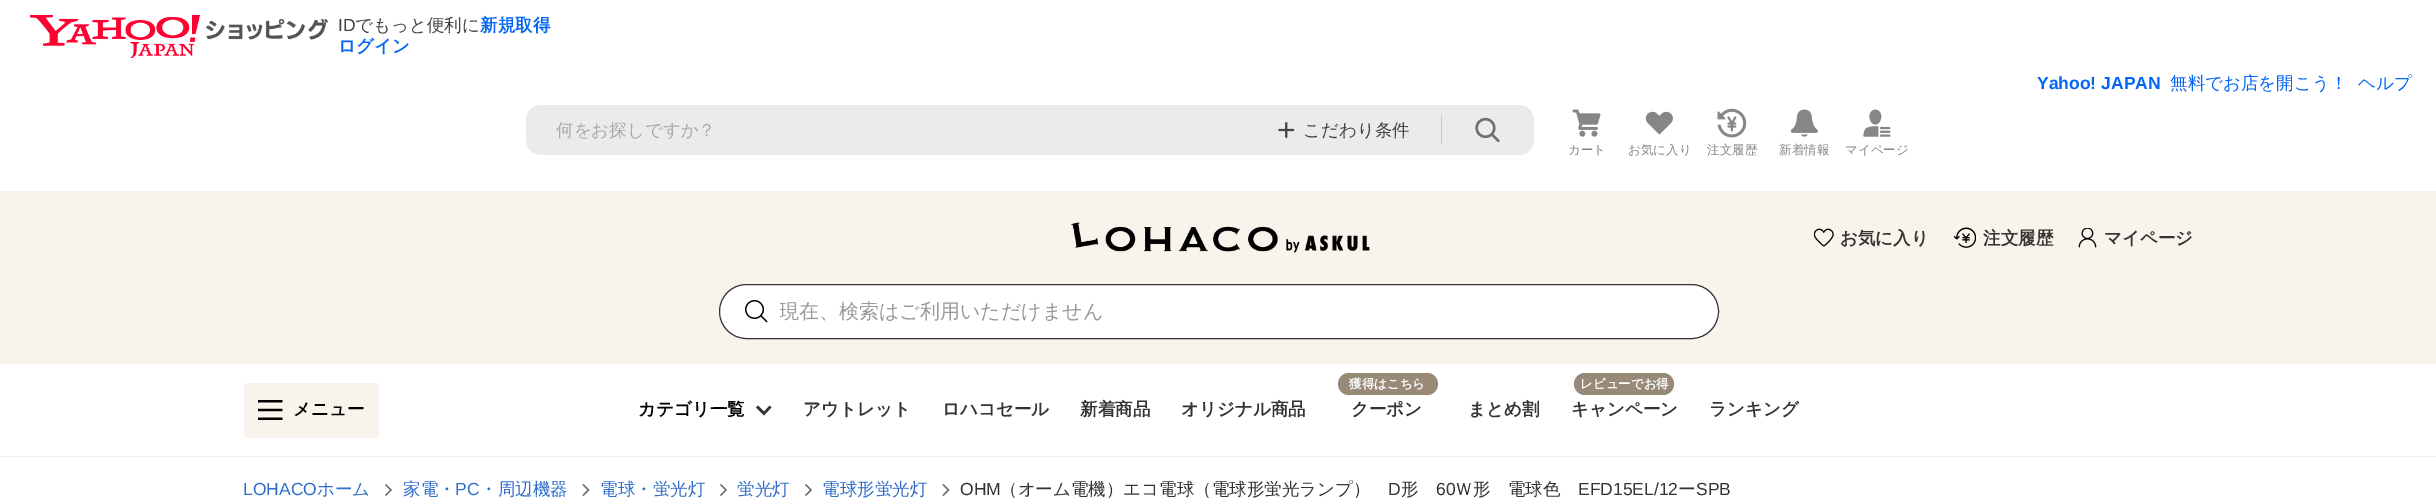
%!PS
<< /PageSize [2436 501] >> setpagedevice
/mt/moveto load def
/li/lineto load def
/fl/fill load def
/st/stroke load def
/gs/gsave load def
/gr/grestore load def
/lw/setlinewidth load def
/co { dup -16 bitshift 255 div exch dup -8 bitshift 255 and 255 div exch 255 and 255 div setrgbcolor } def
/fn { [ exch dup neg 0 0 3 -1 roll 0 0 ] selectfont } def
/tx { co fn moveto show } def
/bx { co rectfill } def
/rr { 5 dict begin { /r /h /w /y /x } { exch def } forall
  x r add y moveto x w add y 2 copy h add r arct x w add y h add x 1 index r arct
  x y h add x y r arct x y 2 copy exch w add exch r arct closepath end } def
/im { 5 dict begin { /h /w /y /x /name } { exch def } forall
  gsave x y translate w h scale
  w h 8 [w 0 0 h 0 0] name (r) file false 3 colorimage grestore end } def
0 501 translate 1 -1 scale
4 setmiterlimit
0 0 2436 501 16#FFFFFF bx
(media/1.raw) 30 15 298 43 im
16#EBEBEB co
526 105 1008 50 15 rr fl
(media/2.raw) 1278 122 17 16 im
1441 115 1 30 16#C8C8C8 bx
(media/3.raw) 1475 117 25 26 im
(media/4.raw) 1572 109 29 28 im
(media/5.raw) 1645 111 28 24 im
(media/6.raw) 1717 108 30 30 im
(media/7.raw) 1790 109 28 28 im
(media/8.raw) 1863 109 28 28 im
0 191 2436 173 16#F8F3EB bx
(media/9.raw) 1071 222 299 31 im
(media/10.raw) 1814 228 20 19 im
(media/11.raw) 1954 227 22 21 im
(media/12.raw) 2078 228 19 20 im
16#FFFFFF co
719.5 284.5 999 54 27 rr gs fl gr
16#333333 co
st
(media/13.raw) 745 300 23 23 im
16#F8F3EB co
244 383 135 55 4 rr fl
(media/14.raw) 258 400 25 20 im
16#333333 co
2.5 lw
770.5 406.5 mt 764 413.5 li 757 406.5 li st
16#998978 co
1338 373 100 22 11 rr fl
1574 373 100 22 11 rr fl
0 456 2436 1 16#EEEEEE bx
16#666666 co
1.2 lw
385.5 484.5 mt 391 490 li 385.5 495.5 li st
583 484.5 mt 588.5 490 li 583 495.5 li st
720.5 484.5 mt 726 490 li 720.5 495.5 li st
805.5 484.5 mt 811 490 li 805.5 495.5 li st
943 484.5 mt 948.5 490 li 943 495.5 li st
(ID) 338 31 /LiberationSans-Regular 17.5 16#434343 tx
(でもっと便利に) 355 31 /WenQuanYiZenHei-Medium 17.5 16#434343 tx
(新規取得) 480 31 /WenQuanYiZenHei-Bold 17.5 16#0265F6 tx
(ログイン) 338 52 /WenQuanYiZenHei-Bold 17.5 16#0265F6 tx
(Yahoo! JAPAN) 2037 89 /LiberationSans-Bold 17.5 16#0265F6 tx
(無料でお店を開こう！) 2170 89 /WenQuanYiZenHei-Medium 17.5 16#0265F6 tx
(ヘルプ) 2358 89 /WenQuanYiZenHei-Medium 17.5 16#0265F6 tx
(何をお探しですか？) 556 136 /WenQuanYiZenHei-Medium 17.5 16#A9A9A9 tx
(こだわり条件) 1303 136 /WenQuanYiZenHei-Medium 17.5 16#434343 tx
(カート) 1568 154 /WenQuanYiZenHei-Medium 12.5 16#868686 tx
(お気に入り) 1628 154 /WenQuanYiZenHei-Medium 12.5 16#868686 tx
(注文履歴) 1707 154 /WenQuanYiZenHei-Medium 12.5 16#868686 tx
(新着情報) 1779 154 /WenQuanYiZenHei-Medium 12.5 16#868686 tx
(マイページ) 1845 154 /WenQuanYiZenHei-Medium 12.5 16#868686 tx
(お気に入り) 1840 244 /WenQuanYiZenHei-Bold 17.5 16#333333 tx
(注文履歴) 1983 244 /WenQuanYiZenHei-Bold 17.5 16#333333 tx
(マイページ) 2104 244 /WenQuanYiZenHei-Bold 17.5 16#333333 tx
gs
780 299 908 26 rectclip
(現在、検索はご利用いただけません) 779 318 /WenQuanYiZenHei-Medium 20 16#999999 tx
gr
(メニュー) 293 415 /WenQuanYiZenHei-Bold 17.5 16#000000 tx
(カテゴリ一覧) 638 415 /WenQuanYiZenHei-Bold 17.5 16#000000 tx
(アウトレット) 803 415 /WenQuanYiZenHei-Bold 17.5 16#333333 tx
(ロハコセール) 942 415 /WenQuanYiZenHei-Bold 17.5 16#333333 tx
(新着商品) 1080 415 /WenQuanYiZenHei-Bold 17.5 16#333333 tx
(オリジナル商品) 1181 415 /WenQuanYiZenHei-Bold 17.5 16#333333 tx
(獲得はこちら) 1349 388 /WenQuanYiZenHei-Bold 12.5 16#FFFFFF tx
(クーポン) 1351 415 /WenQuanYiZenHei-Bold 17.5 16#333333 tx
(まとめ割) 1468 415 /WenQuanYiZenHei-Bold 17.5 16#333333 tx
(レビューでお得) 1580 388 /WenQuanYiZenHei-Bold 12.5 16#FFFFFF tx
(キャンペーン) 1571 415 /WenQuanYiZenHei-Bold 17.5 16#333333 tx
(ランキング) 1709 415 /WenQuanYiZenHei-Bold 17.5 16#333333 tx
(LOHACO) 243 495 /LiberationSans-Regular 17.5 16#306EC9 tx
(ホーム) 317 495 /WenQuanYiZenHei-Medium 17.5 16#306EC9 tx
(家電・) 403 495 /WenQuanYiZenHei-Medium 17.5 16#306EC9 tx
(PC) 455 495 /LiberationSans-Regular 17.5 16#306EC9 tx
(・周辺機器) 480 495 /WenQuanYiZenHei-Medium 17.5 16#306EC9 tx
(電球・蛍光灯) 600 495 /WenQuanYiZenHei-Medium 17.5 16#306EC9 tx
(蛍光灯) 737 495 /WenQuanYiZenHei-Medium 17.5 16#306EC9 tx
(電球形蛍光灯) 822 495 /WenQuanYiZenHei-Medium 17.5 16#306EC9 tx
(OHM) 960 495 /LiberationSans-Regular 17.5 16#333333 tx
(（オーム電機）エコ電球（電球形蛍光ランプ）) 1000 495 /WenQuanYiZenHei-Medium 17.5 16#333333 tx
(D) 1388 495 /LiberationSans-Regular 17.5 16#333333 tx
(形) 1401 495 /WenQuanYiZenHei-Medium 17.5 16#333333 tx
(60) 1436 495 /LiberationSans-Regular 17.5 16#333333 tx
(Ｗ形　電球色) 1455 495 /WenQuanYiZenHei-Medium 17.5 16#333333 tx
(EFD15EL/12) 1578 495 /LiberationSans-Regular 17.5 16#333333 tx
(ー) 1678 495 /WenQuanYiZenHei-Medium 17.5 16#333333 tx
(SPB) 1696 495 /LiberationSans-Regular 17.5 16#333333 tx
showpage
